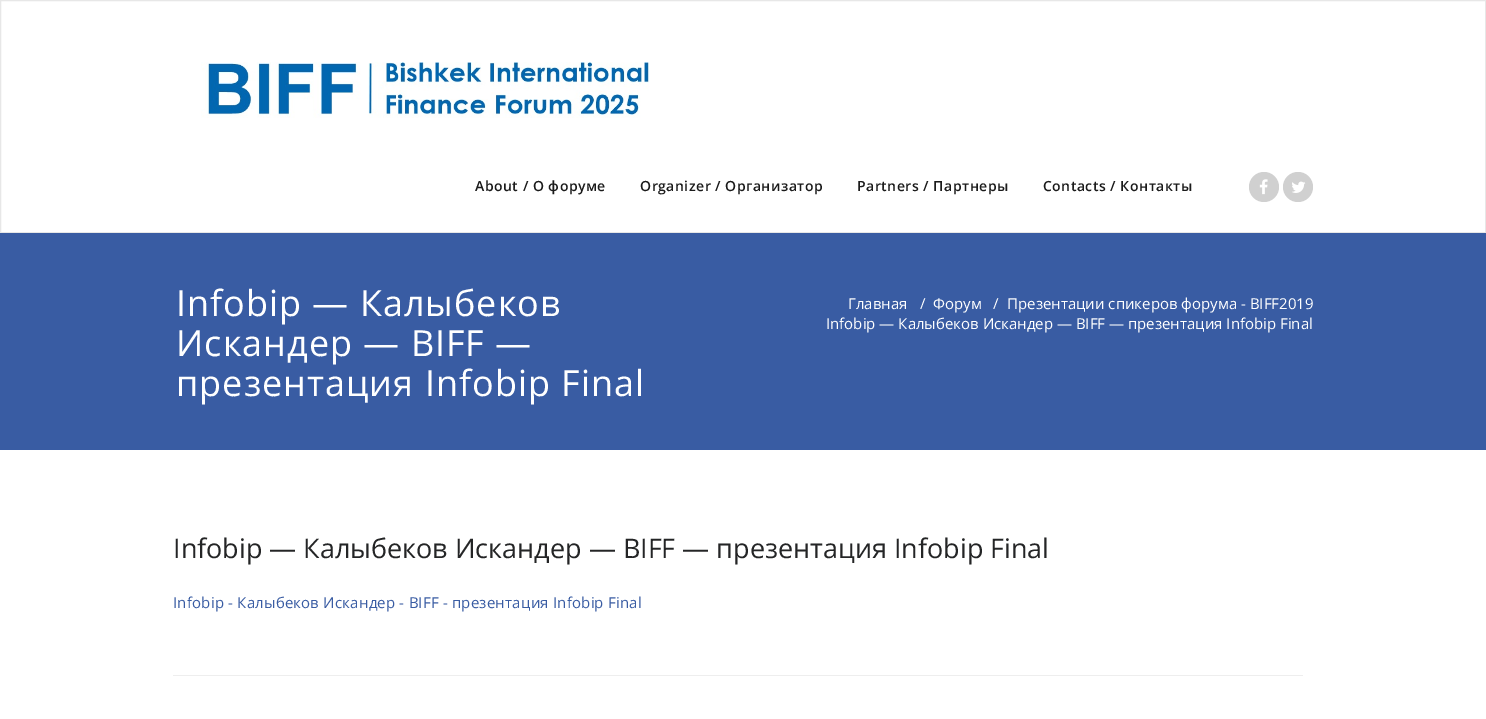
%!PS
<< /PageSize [1486 719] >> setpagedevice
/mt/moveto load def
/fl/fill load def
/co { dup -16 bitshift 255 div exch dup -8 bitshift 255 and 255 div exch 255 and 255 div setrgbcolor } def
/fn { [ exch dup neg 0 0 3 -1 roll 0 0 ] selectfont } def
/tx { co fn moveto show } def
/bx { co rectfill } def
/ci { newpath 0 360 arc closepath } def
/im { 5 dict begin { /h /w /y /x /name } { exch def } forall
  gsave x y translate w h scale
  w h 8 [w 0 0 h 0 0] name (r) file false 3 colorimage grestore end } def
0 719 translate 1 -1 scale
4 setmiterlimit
0 0 1486 719 16#FFFFFF bx
16#E7E7E7 co
.5 .5 1485 232 rectstroke
(media/1.raw) 201 62 449 56 im
16#D0D0D0 co
1264 187 15 ci fl
(media/2.raw) 1259 179 9 16 im
1298 187 15 ci fl
(media/3.raw) 1292 181 14 12 im
0 233 1486 217 16#395CA3 bx
173 675 1130 1 16#EEEEEE bx
/OpenSans-SemiBold 14 fn
16#1B1B1B co
475 191 mt .5 0 (About / О форуме) ashow
640 191 mt .5 0 (Organizer / Организатор) ashow
857 191 mt .5 0 (Partners / Партнеры) ashow
1043 191 mt .5 0 (Contacts / Контакты) ashow
/OpenSans-Regular 36 fn
16#FFFFFF co
176 316 mt 1 0 (Infobip — Калыбеков) ashow
176 356 mt 1 0 (Искандер — BIFF —) ashow
176 396 mt 1 0 (презентация Infobip Final) ashow
(Главная) 848 309 /OpenSans-Regular 15 16#FFFFFF tx
(/) 920 309 /OpenSans-Regular 15 16#FFFFFF tx
(Форум) 933 309 /OpenSans-Regular 15 16#FFFFFF tx
(/) 993 309 /OpenSans-Regular 15 16#FFFFFF tx
(Презентации спикеров форума - BIFF2019) 1007 309 /OpenSans-Regular 15 16#FFFFFF tx
(Infobip — Калыбеков Искандер — BIFF — презентация Infobip Final) 826 329 /OpenSans-Regular 15 16#FFFFFF tx
(Infobip — Калыбеков Искандер — BIFF — презентация Infobip Final) 173 558 /OpenSans-Regular 27 16#242526 tx
/OpenSans-Regular 15 fn
16#395CA3 co
173 608 mt .2 0 (Infobip - Калыбеков Искандер - BIFF - презентация Infobip Final) ashow
showpage
